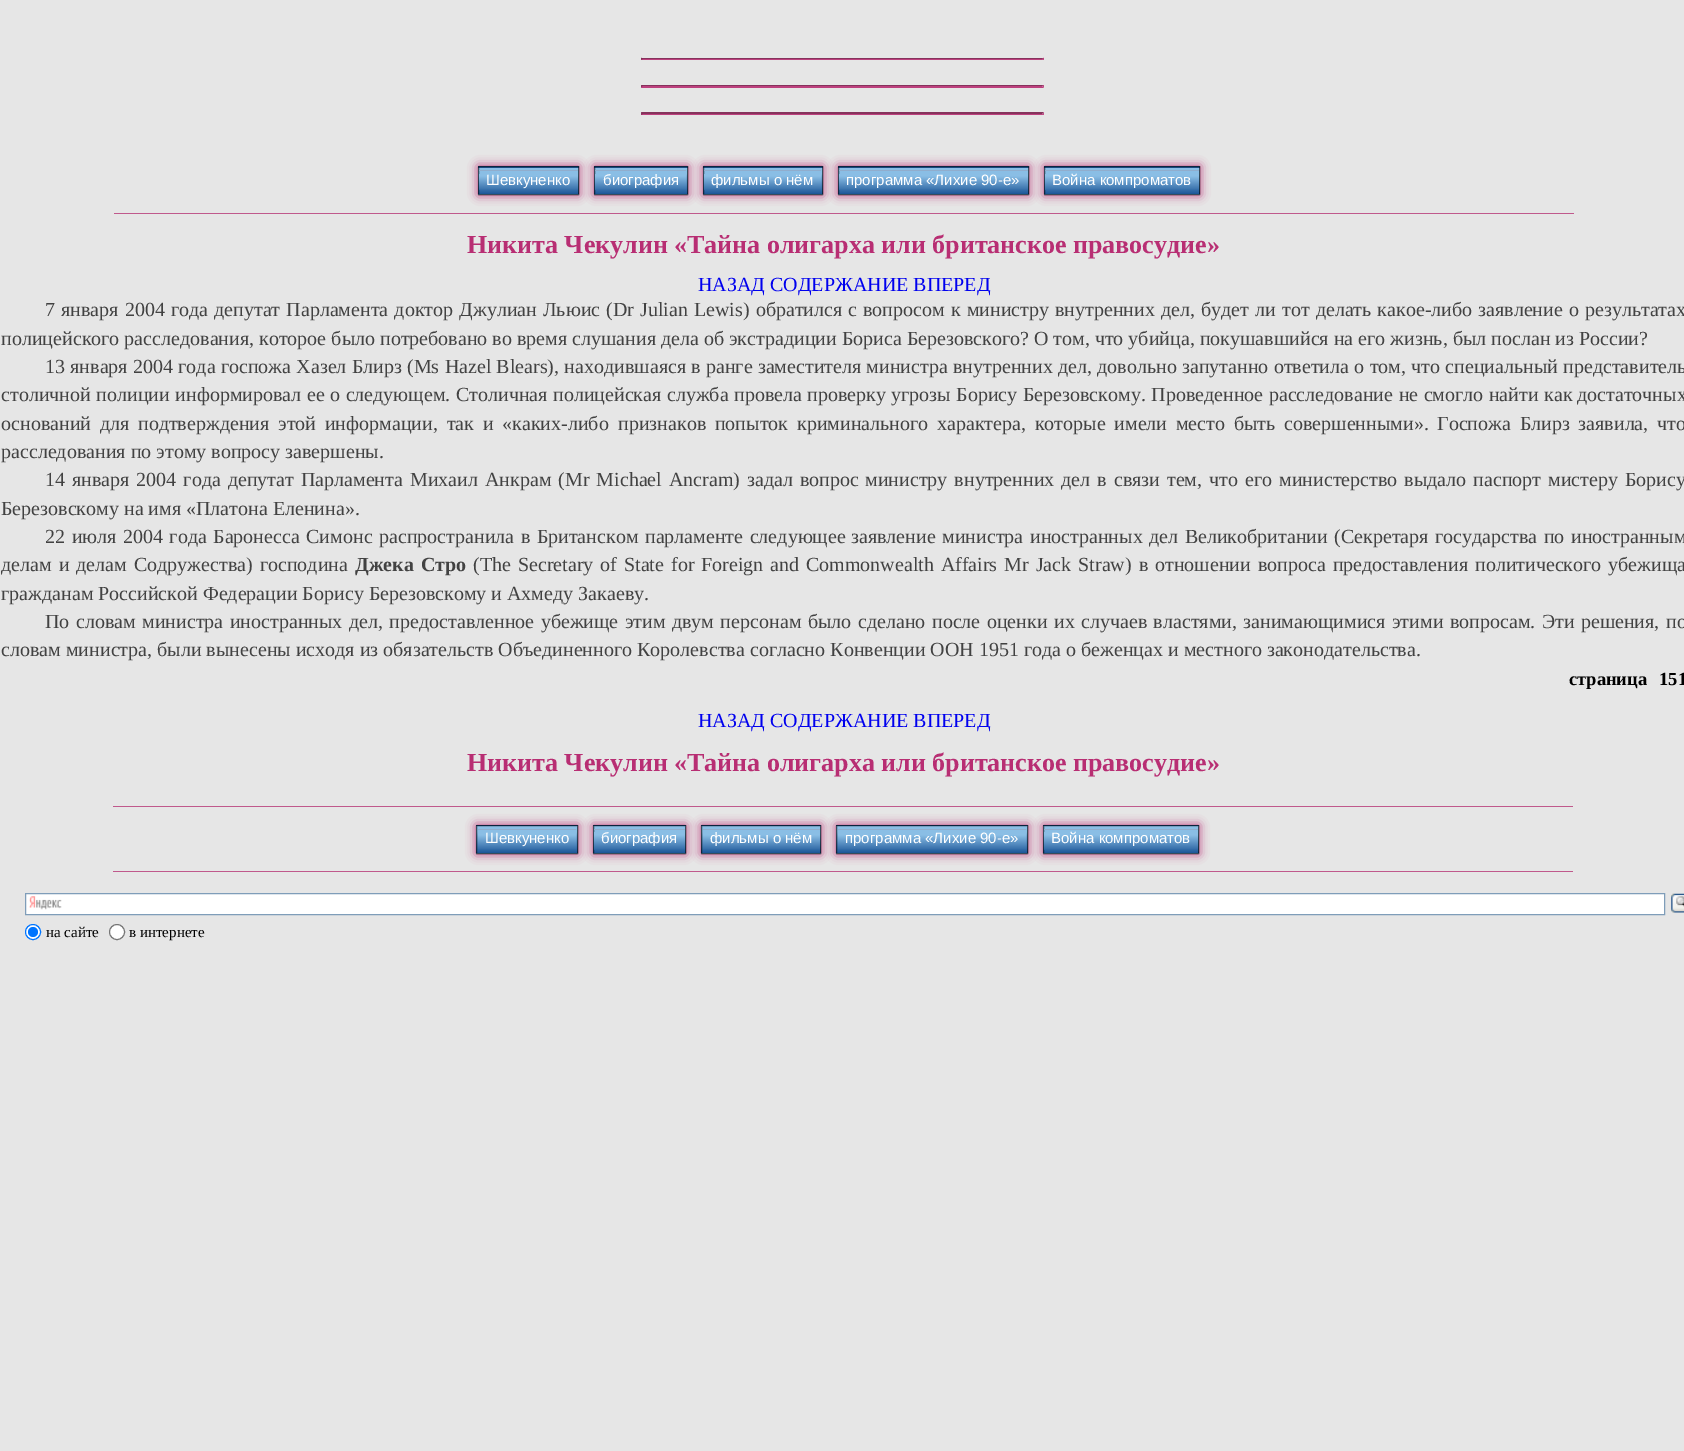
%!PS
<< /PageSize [1684 1451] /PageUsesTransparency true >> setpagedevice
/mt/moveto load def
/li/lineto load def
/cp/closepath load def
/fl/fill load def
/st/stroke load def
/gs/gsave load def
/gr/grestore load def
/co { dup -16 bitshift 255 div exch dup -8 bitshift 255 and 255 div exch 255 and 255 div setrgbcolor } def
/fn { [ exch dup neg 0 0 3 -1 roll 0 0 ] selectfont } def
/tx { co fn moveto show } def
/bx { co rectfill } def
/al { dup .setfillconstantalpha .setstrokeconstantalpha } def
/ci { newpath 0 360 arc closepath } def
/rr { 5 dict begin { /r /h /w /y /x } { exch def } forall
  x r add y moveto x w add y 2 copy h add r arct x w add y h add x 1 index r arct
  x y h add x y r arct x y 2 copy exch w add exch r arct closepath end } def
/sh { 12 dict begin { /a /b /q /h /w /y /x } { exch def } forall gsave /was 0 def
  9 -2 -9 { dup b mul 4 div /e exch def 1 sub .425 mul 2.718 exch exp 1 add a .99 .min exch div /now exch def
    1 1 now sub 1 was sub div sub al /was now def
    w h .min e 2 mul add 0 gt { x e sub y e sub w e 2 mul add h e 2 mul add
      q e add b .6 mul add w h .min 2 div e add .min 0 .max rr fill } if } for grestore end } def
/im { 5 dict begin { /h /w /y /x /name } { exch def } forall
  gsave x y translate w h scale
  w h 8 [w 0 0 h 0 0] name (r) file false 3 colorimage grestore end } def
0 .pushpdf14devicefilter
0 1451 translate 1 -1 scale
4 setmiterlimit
0 0 1684 1451 16#E6E6E6 bx
16#86335C co
641 58 mt 1044 58 li 1042 59 li 642 59 li cp fl
0.9 al
16#B82E73 co
1044 57.5 mt 1044 60 li 1042.5 59 li cp fl
1044 60 mt 641 60 li 642 59 li 1042 59 li cp fl
16#7B1F4D co
641 60 mt 641 57.5 li 642.5 59 li cp fl
1 al
16#86335C co
641 85 mt 1044 85 li 1042 86 li 642 86 li cp fl
0.9 al
16#B82E73 co
1044 85 mt 1044 87.5 li 1042.5 86 li cp fl
1044 88 mt 641 88 li 642 86 li 1042 86 li cp fl
16#7B1F4D co
641 87.5 mt 641 85 li 642.5 86 li cp fl
1 al
16#86335C co
641 112 mt 1044 112 li 1042 114 li 642 114 li cp fl
16#BD407F co
1044 112.5 mt 1044 115 li 1042.5 114 li cp fl
0.9 al
16#B82E73 co
1044 115 mt 641 115 li 642 114 li 1042 114 li cp fl
16#7B1F4D co
641 115 mt 641 112.5 li 642.5 114 li cp fl
1 al
114 213 1460 1 16#C0598C bx
16#B82E73 co
478 166 101 29 0 5 1 sh
gs 478 166 mt 579 166 li 579 168 li 478 168 li cp clip newpath
<< /ShadingType 2 /ColorSpace /DeviceRGB /Coords [528 141 528 168] /Extend [true true] /Function << /FunctionType 3 /Domain [0 1] /Functions [<< /FunctionType 2 /Domain [0 1] /C0 [.541 .745 .898] /C1 [.541 .745 .898] /N 1 >> << /FunctionType 2 /Domain [0 1] /C0 [.541 .745 .898] /C1 [.118 .345 .6] /N 1 >>] /Bounds [.22] /Encode [0 1 0 1] >> >> shfill gr
gs 478 168 mt 579 168 li 579 194 li 478 194 li cp clip newpath
<< /ShadingType 2 /ColorSpace /DeviceRGB /Coords [528 168 528 194] /Extend [true true] /Function << /FunctionType 3 /Domain [0 1] /Functions [<< /FunctionType 2 /Domain [0 1] /C0 [.541 .745 .898] /C1 [.541 .745 .898] /N 1 >> << /FunctionType 2 /Domain [0 1] /C0 [.541 .745 .898] /C1 [.118 .345 .6] /N 1 >>] /Bounds [.22] /Encode [0 1 0 1] >> >> shfill gr
gs 478 194 mt 579 194 li 579 195 li 478 195 li cp clip newpath
<< /ShadingType 2 /ColorSpace /DeviceRGB /Coords [528 194 528 220] /Extend [true true] /Function << /FunctionType 3 /Domain [0 1] /Functions [<< /FunctionType 2 /Domain [0 1] /C0 [.541 .745 .898] /C1 [.541 .745 .898] /N 1 >> << /FunctionType 2 /Domain [0 1] /C0 [.541 .745 .898] /C1 [.118 .345 .6] /N 1 >>] /Bounds [.22] /Encode [0 1 0 1] >> >> shfill gr
0.6 al
16#000000 co
478.5 166.5 100 28 rectstroke
1 al
gs 479 174 mt 578 174 li 578 190 li 479 190 li cp clip newpath
<< /ShadingType 2 /ColorSpace /DeviceRGB /Coords [528 171 528 194] /Extend [true true] /Function << /FunctionType 3 /Domain [0 1] /Functions [<< /FunctionType 2 /Domain [0 1] /C0 [.541 .745 .898] /C1 [.541 .745 .898] /N 1 >> << /FunctionType 2 /Domain [0 1] /C0 [.541 .745 .898] /C1 [.118 .345 .6] /N 1 >>] /Bounds [.22] /Encode [0 1 0 1] >> >> shfill gr
479 170 99 1 16#90ADCD bx
16#B82E73 co
594 166 94 29 0 5 1 sh
gs 594 166 mt 688 166 li 688 168 li 594 168 li cp clip newpath
<< /ShadingType 2 /ColorSpace /DeviceRGB /Coords [641 141 641 168] /Extend [true true] /Function << /FunctionType 3 /Domain [0 1] /Functions [<< /FunctionType 2 /Domain [0 1] /C0 [.541 .745 .898] /C1 [.541 .745 .898] /N 1 >> << /FunctionType 2 /Domain [0 1] /C0 [.541 .745 .898] /C1 [.118 .345 .6] /N 1 >>] /Bounds [.22] /Encode [0 1 0 1] >> >> shfill gr
gs 594 168 mt 688 168 li 688 194 li 594 194 li cp clip newpath
<< /ShadingType 2 /ColorSpace /DeviceRGB /Coords [641 168 641 194] /Extend [true true] /Function << /FunctionType 3 /Domain [0 1] /Functions [<< /FunctionType 2 /Domain [0 1] /C0 [.541 .745 .898] /C1 [.541 .745 .898] /N 1 >> << /FunctionType 2 /Domain [0 1] /C0 [.541 .745 .898] /C1 [.118 .345 .6] /N 1 >>] /Bounds [.22] /Encode [0 1 0 1] >> >> shfill gr
gs 594 194 mt 688 194 li 688 195 li 594 195 li cp clip newpath
<< /ShadingType 2 /ColorSpace /DeviceRGB /Coords [641 194 641 220] /Extend [true true] /Function << /FunctionType 3 /Domain [0 1] /Functions [<< /FunctionType 2 /Domain [0 1] /C0 [.541 .745 .898] /C1 [.541 .745 .898] /N 1 >> << /FunctionType 2 /Domain [0 1] /C0 [.541 .745 .898] /C1 [.118 .345 .6] /N 1 >>] /Bounds [.22] /Encode [0 1 0 1] >> >> shfill gr
0.6 al
16#000000 co
594.5 166.5 93 28 rectstroke
1 al
gs 595 174 mt 686 174 li 686 190 li 595 190 li cp clip newpath
<< /ShadingType 2 /ColorSpace /DeviceRGB /Coords [641 171 641 194] /Extend [true true] /Function << /FunctionType 3 /Domain [0 1] /Functions [<< /FunctionType 2 /Domain [0 1] /C0 [.541 .745 .898] /C1 [.541 .745 .898] /N 1 >> << /FunctionType 2 /Domain [0 1] /C0 [.541 .745 .898] /C1 [.118 .345 .6] /N 1 >>] /Bounds [.22] /Encode [0 1 0 1] >> >> shfill gr
595 170 91 1 16#90ADCD bx
16#B82E73 co
703 166 120 29 0 5 1 sh
gs 703 166 mt 823 166 li 823 168 li 703 168 li cp clip newpath
<< /ShadingType 2 /ColorSpace /DeviceRGB /Coords [763 141 763 168] /Extend [true true] /Function << /FunctionType 3 /Domain [0 1] /Functions [<< /FunctionType 2 /Domain [0 1] /C0 [.541 .745 .898] /C1 [.541 .745 .898] /N 1 >> << /FunctionType 2 /Domain [0 1] /C0 [.541 .745 .898] /C1 [.118 .345 .6] /N 1 >>] /Bounds [.22] /Encode [0 1 0 1] >> >> shfill gr
gs 703 168 mt 823 168 li 823 194 li 703 194 li cp clip newpath
<< /ShadingType 2 /ColorSpace /DeviceRGB /Coords [763 168 763 194] /Extend [true true] /Function << /FunctionType 3 /Domain [0 1] /Functions [<< /FunctionType 2 /Domain [0 1] /C0 [.541 .745 .898] /C1 [.541 .745 .898] /N 1 >> << /FunctionType 2 /Domain [0 1] /C0 [.541 .745 .898] /C1 [.118 .345 .6] /N 1 >>] /Bounds [.22] /Encode [0 1 0 1] >> >> shfill gr
gs 703 194 mt 823 194 li 823 195 li 703 195 li cp clip newpath
<< /ShadingType 2 /ColorSpace /DeviceRGB /Coords [763 194 763 220] /Extend [true true] /Function << /FunctionType 3 /Domain [0 1] /Functions [<< /FunctionType 2 /Domain [0 1] /C0 [.541 .745 .898] /C1 [.541 .745 .898] /N 1 >> << /FunctionType 2 /Domain [0 1] /C0 [.541 .745 .898] /C1 [.118 .345 .6] /N 1 >>] /Bounds [.22] /Encode [0 1 0 1] >> >> shfill gr
0.6 al
16#000000 co
703.5 166.5 119 28 rectstroke
1 al
gs 704 174 mt 821 174 li 821 190 li 704 190 li cp clip newpath
<< /ShadingType 2 /ColorSpace /DeviceRGB /Coords [763 171 763 194] /Extend [true true] /Function << /FunctionType 3 /Domain [0 1] /Functions [<< /FunctionType 2 /Domain [0 1] /C0 [.541 .745 .898] /C1 [.541 .745 .898] /N 1 >> << /FunctionType 2 /Domain [0 1] /C0 [.541 .745 .898] /C1 [.118 .345 .6] /N 1 >>] /Bounds [.22] /Encode [0 1 0 1] >> >> shfill gr
704 170 117 1 16#90ADCD bx
16#B82E73 co
838 166 191 29 0 5 1 sh
gs 838 166 mt 1029 166 li 1029 168 li 838 168 li cp clip newpath
<< /ShadingType 2 /ColorSpace /DeviceRGB /Coords [933 141 933 168] /Extend [true true] /Function << /FunctionType 3 /Domain [0 1] /Functions [<< /FunctionType 2 /Domain [0 1] /C0 [.541 .745 .898] /C1 [.541 .745 .898] /N 1 >> << /FunctionType 2 /Domain [0 1] /C0 [.541 .745 .898] /C1 [.118 .345 .6] /N 1 >>] /Bounds [.22] /Encode [0 1 0 1] >> >> shfill gr
gs 838 168 mt 1029 168 li 1029 194 li 838 194 li cp clip newpath
<< /ShadingType 2 /ColorSpace /DeviceRGB /Coords [933 168 933 194] /Extend [true true] /Function << /FunctionType 3 /Domain [0 1] /Functions [<< /FunctionType 2 /Domain [0 1] /C0 [.541 .745 .898] /C1 [.541 .745 .898] /N 1 >> << /FunctionType 2 /Domain [0 1] /C0 [.541 .745 .898] /C1 [.118 .345 .6] /N 1 >>] /Bounds [.22] /Encode [0 1 0 1] >> >> shfill gr
gs 838 194 mt 1029 194 li 1029 195 li 838 195 li cp clip newpath
<< /ShadingType 2 /ColorSpace /DeviceRGB /Coords [933 194 933 220] /Extend [true true] /Function << /FunctionType 3 /Domain [0 1] /Functions [<< /FunctionType 2 /Domain [0 1] /C0 [.541 .745 .898] /C1 [.541 .745 .898] /N 1 >> << /FunctionType 2 /Domain [0 1] /C0 [.541 .745 .898] /C1 [.118 .345 .6] /N 1 >>] /Bounds [.22] /Encode [0 1 0 1] >> >> shfill gr
0.6 al
16#000000 co
838.5 166.5 190 28 rectstroke
1 al
gs 839 174 mt 1028 174 li 1028 190 li 839 190 li cp clip newpath
<< /ShadingType 2 /ColorSpace /DeviceRGB /Coords [933 171 933 194] /Extend [true true] /Function << /FunctionType 3 /Domain [0 1] /Functions [<< /FunctionType 2 /Domain [0 1] /C0 [.541 .745 .898] /C1 [.541 .745 .898] /N 1 >> << /FunctionType 2 /Domain [0 1] /C0 [.541 .745 .898] /C1 [.118 .345 .6] /N 1 >>] /Bounds [.22] /Encode [0 1 0 1] >> >> shfill gr
839 170 189 1 16#90ADCD bx
16#B82E73 co
1044 166 156 29 0 5 1 sh
gs 1044 166 mt 1200 166 li 1200 168 li 1044 168 li cp clip newpath
<< /ShadingType 2 /ColorSpace /DeviceRGB /Coords [1122 141 1122 168] /Extend [true true] /Function << /FunctionType 3 /Domain [0 1] /Functions [<< /FunctionType 2 /Domain [0 1] /C0 [.541 .745 .898] /C1 [.541 .745 .898] /N 1 >> << /FunctionType 2 /Domain [0 1] /C0 [.541 .745 .898] /C1 [.118 .345 .6] /N 1 >>] /Bounds [.22] /Encode [0 1 0 1] >> >> shfill gr
gs 1044 168 mt 1200 168 li 1200 194 li 1044 194 li cp clip newpath
<< /ShadingType 2 /ColorSpace /DeviceRGB /Coords [1122 168 1122 194] /Extend [true true] /Function << /FunctionType 3 /Domain [0 1] /Functions [<< /FunctionType 2 /Domain [0 1] /C0 [.541 .745 .898] /C1 [.541 .745 .898] /N 1 >> << /FunctionType 2 /Domain [0 1] /C0 [.541 .745 .898] /C1 [.118 .345 .6] /N 1 >>] /Bounds [.22] /Encode [0 1 0 1] >> >> shfill gr
gs 1044 194 mt 1200 194 li 1200 195 li 1044 195 li cp clip newpath
<< /ShadingType 2 /ColorSpace /DeviceRGB /Coords [1122 194 1122 220] /Extend [true true] /Function << /FunctionType 3 /Domain [0 1] /Functions [<< /FunctionType 2 /Domain [0 1] /C0 [.541 .745 .898] /C1 [.541 .745 .898] /N 1 >> << /FunctionType 2 /Domain [0 1] /C0 [.541 .745 .898] /C1 [.118 .345 .6] /N 1 >>] /Bounds [.22] /Encode [0 1 0 1] >> >> shfill gr
0.6 al
16#000000 co
1044.5 166.5 155 28 rectstroke
1 al
gs 1045 174 mt 1199 174 li 1199 190 li 1045 190 li cp clip newpath
<< /ShadingType 2 /ColorSpace /DeviceRGB /Coords [1122 171 1122 194] /Extend [true true] /Function << /FunctionType 3 /Domain [0 1] /Functions [<< /FunctionType 2 /Domain [0 1] /C0 [.541 .745 .898] /C1 [.541 .745 .898] /N 1 >> << /FunctionType 2 /Domain [0 1] /C0 [.541 .745 .898] /C1 [.118 .345 .6] /N 1 >>] /Bounds [.22] /Encode [0 1 0 1] >> >> shfill gr
1045 170 154 1 16#90ADCD bx
113 806 1460 1 16#C0598C bx
113 871 1460 1 16#C0598C bx
16#B82E73 co
476 825 102 29 0 5 1 sh
gs 476 825 mt 578 825 li 578 826 li 476 826 li cp clip newpath
<< /ShadingType 2 /ColorSpace /DeviceRGB /Coords [527 800 527 826] /Extend [true true] /Function << /FunctionType 3 /Domain [0 1] /Functions [<< /FunctionType 2 /Domain [0 1] /C0 [.541 .745 .898] /C1 [.541 .745 .898] /N 1 >> << /FunctionType 2 /Domain [0 1] /C0 [.541 .745 .898] /C1 [.118 .345 .6] /N 1 >>] /Bounds [.22] /Encode [0 1 0 1] >> >> shfill gr
gs 476 826 mt 578 826 li 578 853 li 476 853 li cp clip newpath
<< /ShadingType 2 /ColorSpace /DeviceRGB /Coords [527 826 527 853] /Extend [true true] /Function << /FunctionType 3 /Domain [0 1] /Functions [<< /FunctionType 2 /Domain [0 1] /C0 [.541 .745 .898] /C1 [.541 .745 .898] /N 1 >> << /FunctionType 2 /Domain [0 1] /C0 [.541 .745 .898] /C1 [.118 .345 .6] /N 1 >>] /Bounds [.22] /Encode [0 1 0 1] >> >> shfill gr
gs 476 853 mt 578 853 li 578 854 li 476 854 li cp clip newpath
<< /ShadingType 2 /ColorSpace /DeviceRGB /Coords [527 853 527 879] /Extend [true true] /Function << /FunctionType 3 /Domain [0 1] /Functions [<< /FunctionType 2 /Domain [0 1] /C0 [.541 .745 .898] /C1 [.541 .745 .898] /N 1 >> << /FunctionType 2 /Domain [0 1] /C0 [.541 .745 .898] /C1 [.118 .345 .6] /N 1 >>] /Bounds [.22] /Encode [0 1 0 1] >> >> shfill gr
0.6 al
16#000000 co
476.5 825.5 101 28 rectstroke
1 al
gs 478 832 mt 576 832 li 576 850 li 478 850 li cp clip newpath
<< /ShadingType 2 /ColorSpace /DeviceRGB /Coords [527 830 527 853] /Extend [true true] /Function << /FunctionType 3 /Domain [0 1] /Functions [<< /FunctionType 2 /Domain [0 1] /C0 [.541 .745 .898] /C1 [.541 .745 .898] /N 1 >> << /FunctionType 2 /Domain [0 1] /C0 [.541 .745 .898] /C1 [.118 .345 .6] /N 1 >>] /Bounds [.22] /Encode [0 1 0 1] >> >> shfill gr
478 829 98 1 16#90ADCD bx
16#B82E73 co
593 825 93 29 0 5 1 sh
gs 593 825 mt 686 825 li 686 826 li 593 826 li cp clip newpath
<< /ShadingType 2 /ColorSpace /DeviceRGB /Coords [639 800 639 826] /Extend [true true] /Function << /FunctionType 3 /Domain [0 1] /Functions [<< /FunctionType 2 /Domain [0 1] /C0 [.541 .745 .898] /C1 [.541 .745 .898] /N 1 >> << /FunctionType 2 /Domain [0 1] /C0 [.541 .745 .898] /C1 [.118 .345 .6] /N 1 >>] /Bounds [.22] /Encode [0 1 0 1] >> >> shfill gr
gs 593 826 mt 686 826 li 686 853 li 593 853 li cp clip newpath
<< /ShadingType 2 /ColorSpace /DeviceRGB /Coords [639 826 639 853] /Extend [true true] /Function << /FunctionType 3 /Domain [0 1] /Functions [<< /FunctionType 2 /Domain [0 1] /C0 [.541 .745 .898] /C1 [.541 .745 .898] /N 1 >> << /FunctionType 2 /Domain [0 1] /C0 [.541 .745 .898] /C1 [.118 .345 .6] /N 1 >>] /Bounds [.22] /Encode [0 1 0 1] >> >> shfill gr
gs 593 853 mt 686 853 li 686 854 li 593 854 li cp clip newpath
<< /ShadingType 2 /ColorSpace /DeviceRGB /Coords [639 853 639 879] /Extend [true true] /Function << /FunctionType 3 /Domain [0 1] /Functions [<< /FunctionType 2 /Domain [0 1] /C0 [.541 .745 .898] /C1 [.541 .745 .898] /N 1 >> << /FunctionType 2 /Domain [0 1] /C0 [.541 .745 .898] /C1 [.118 .345 .6] /N 1 >>] /Bounds [.22] /Encode [0 1 0 1] >> >> shfill gr
0.6 al
16#000000 co
593.5 825.5 92 28 rectstroke
1 al
gs 594 832 mt 685 832 li 685 850 li 594 850 li cp clip newpath
<< /ShadingType 2 /ColorSpace /DeviceRGB /Coords [639 830 639 853] /Extend [true true] /Function << /FunctionType 3 /Domain [0 1] /Functions [<< /FunctionType 2 /Domain [0 1] /C0 [.541 .745 .898] /C1 [.541 .745 .898] /N 1 >> << /FunctionType 2 /Domain [0 1] /C0 [.541 .745 .898] /C1 [.118 .345 .6] /N 1 >>] /Bounds [.22] /Encode [0 1 0 1] >> >> shfill gr
594 829 91 1 16#90ADCD bx
16#B82E73 co
701 825 120 29 0 5 1 sh
gs 701 825 mt 821 825 li 821 826 li 701 826 li cp clip newpath
<< /ShadingType 2 /ColorSpace /DeviceRGB /Coords [761 800 761 826] /Extend [true true] /Function << /FunctionType 3 /Domain [0 1] /Functions [<< /FunctionType 2 /Domain [0 1] /C0 [.541 .745 .898] /C1 [.541 .745 .898] /N 1 >> << /FunctionType 2 /Domain [0 1] /C0 [.541 .745 .898] /C1 [.118 .345 .6] /N 1 >>] /Bounds [.22] /Encode [0 1 0 1] >> >> shfill gr
gs 701 826 mt 821 826 li 821 853 li 701 853 li cp clip newpath
<< /ShadingType 2 /ColorSpace /DeviceRGB /Coords [761 826 761 853] /Extend [true true] /Function << /FunctionType 3 /Domain [0 1] /Functions [<< /FunctionType 2 /Domain [0 1] /C0 [.541 .745 .898] /C1 [.541 .745 .898] /N 1 >> << /FunctionType 2 /Domain [0 1] /C0 [.541 .745 .898] /C1 [.118 .345 .6] /N 1 >>] /Bounds [.22] /Encode [0 1 0 1] >> >> shfill gr
gs 701 853 mt 821 853 li 821 854 li 701 854 li cp clip newpath
<< /ShadingType 2 /ColorSpace /DeviceRGB /Coords [761 853 761 879] /Extend [true true] /Function << /FunctionType 3 /Domain [0 1] /Functions [<< /FunctionType 2 /Domain [0 1] /C0 [.541 .745 .898] /C1 [.541 .745 .898] /N 1 >> << /FunctionType 2 /Domain [0 1] /C0 [.541 .745 .898] /C1 [.118 .345 .6] /N 1 >>] /Bounds [.22] /Encode [0 1 0 1] >> >> shfill gr
0.6 al
16#000000 co
701.5 825.5 119 28 rectstroke
1 al
gs 703 832 mt 820 832 li 820 850 li 703 850 li cp clip newpath
<< /ShadingType 2 /ColorSpace /DeviceRGB /Coords [761 830 761 853] /Extend [true true] /Function << /FunctionType 3 /Domain [0 1] /Functions [<< /FunctionType 2 /Domain [0 1] /C0 [.541 .745 .898] /C1 [.541 .745 .898] /N 1 >> << /FunctionType 2 /Domain [0 1] /C0 [.541 .745 .898] /C1 [.118 .345 .6] /N 1 >>] /Bounds [.22] /Encode [0 1 0 1] >> >> shfill gr
703 829 117 1 16#90ADCD bx
16#B82E73 co
836 825 192 29 0 5 1 sh
gs 836 825 mt 1028 825 li 1028 826 li 836 826 li cp clip newpath
<< /ShadingType 2 /ColorSpace /DeviceRGB /Coords [932 800 932 826] /Extend [true true] /Function << /FunctionType 3 /Domain [0 1] /Functions [<< /FunctionType 2 /Domain [0 1] /C0 [.541 .745 .898] /C1 [.541 .745 .898] /N 1 >> << /FunctionType 2 /Domain [0 1] /C0 [.541 .745 .898] /C1 [.118 .345 .6] /N 1 >>] /Bounds [.22] /Encode [0 1 0 1] >> >> shfill gr
gs 836 826 mt 1028 826 li 1028 853 li 836 853 li cp clip newpath
<< /ShadingType 2 /ColorSpace /DeviceRGB /Coords [932 826 932 853] /Extend [true true] /Function << /FunctionType 3 /Domain [0 1] /Functions [<< /FunctionType 2 /Domain [0 1] /C0 [.541 .745 .898] /C1 [.541 .745 .898] /N 1 >> << /FunctionType 2 /Domain [0 1] /C0 [.541 .745 .898] /C1 [.118 .345 .6] /N 1 >>] /Bounds [.22] /Encode [0 1 0 1] >> >> shfill gr
gs 836 853 mt 1028 853 li 1028 854 li 836 854 li cp clip newpath
<< /ShadingType 2 /ColorSpace /DeviceRGB /Coords [932 853 932 879] /Extend [true true] /Function << /FunctionType 3 /Domain [0 1] /Functions [<< /FunctionType 2 /Domain [0 1] /C0 [.541 .745 .898] /C1 [.541 .745 .898] /N 1 >> << /FunctionType 2 /Domain [0 1] /C0 [.541 .745 .898] /C1 [.118 .345 .6] /N 1 >>] /Bounds [.22] /Encode [0 1 0 1] >> >> shfill gr
0.6 al
16#000000 co
836.5 825.5 191 28 rectstroke
1 al
gs 838 832 mt 1026 832 li 1026 850 li 838 850 li cp clip newpath
<< /ShadingType 2 /ColorSpace /DeviceRGB /Coords [932 830 932 853] /Extend [true true] /Function << /FunctionType 3 /Domain [0 1] /Functions [<< /FunctionType 2 /Domain [0 1] /C0 [.541 .745 .898] /C1 [.541 .745 .898] /N 1 >> << /FunctionType 2 /Domain [0 1] /C0 [.541 .745 .898] /C1 [.118 .345 .6] /N 1 >>] /Bounds [.22] /Encode [0 1 0 1] >> >> shfill gr
838 829 188 1 16#90ADCD bx
16#B82E73 co
1043 825 156 29 0 5 1 sh
gs 1043 825 mt 1199 825 li 1199 826 li 1043 826 li cp clip newpath
<< /ShadingType 2 /ColorSpace /DeviceRGB /Coords [1121 800 1121 826] /Extend [true true] /Function << /FunctionType 3 /Domain [0 1] /Functions [<< /FunctionType 2 /Domain [0 1] /C0 [.541 .745 .898] /C1 [.541 .745 .898] /N 1 >> << /FunctionType 2 /Domain [0 1] /C0 [.541 .745 .898] /C1 [.118 .345 .6] /N 1 >>] /Bounds [.22] /Encode [0 1 0 1] >> >> shfill gr
gs 1043 826 mt 1199 826 li 1199 853 li 1043 853 li cp clip newpath
<< /ShadingType 2 /ColorSpace /DeviceRGB /Coords [1121 826 1121 853] /Extend [true true] /Function << /FunctionType 3 /Domain [0 1] /Functions [<< /FunctionType 2 /Domain [0 1] /C0 [.541 .745 .898] /C1 [.541 .745 .898] /N 1 >> << /FunctionType 2 /Domain [0 1] /C0 [.541 .745 .898] /C1 [.118 .345 .6] /N 1 >>] /Bounds [.22] /Encode [0 1 0 1] >> >> shfill gr
gs 1043 853 mt 1199 853 li 1199 854 li 1043 854 li cp clip newpath
<< /ShadingType 2 /ColorSpace /DeviceRGB /Coords [1121 853 1121 879] /Extend [true true] /Function << /FunctionType 3 /Domain [0 1] /Functions [<< /FunctionType 2 /Domain [0 1] /C0 [.541 .745 .898] /C1 [.541 .745 .898] /N 1 >> << /FunctionType 2 /Domain [0 1] /C0 [.541 .745 .898] /C1 [.118 .345 .6] /N 1 >>] /Bounds [.22] /Encode [0 1 0 1] >> >> shfill gr
0.6 al
16#000000 co
1043.5 825.5 155 28 rectstroke
1 al
gs 1044 832 mt 1198 832 li 1198 850 li 1044 850 li cp clip newpath
<< /ShadingType 2 /ColorSpace /DeviceRGB /Coords [1121 830 1121 853] /Extend [true true] /Function << /FunctionType 3 /Domain [0 1] /Functions [<< /FunctionType 2 /Domain [0 1] /C0 [.541 .745 .898] /C1 [.541 .745 .898] /N 1 >> << /FunctionType 2 /Domain [0 1] /C0 [.541 .745 .898] /C1 [.118 .345 .6] /N 1 >>] /Bounds [.22] /Encode [0 1 0 1] >> >> shfill gr
1044 829 154 1 16#90ADCD bx
26 894 1638 20 16#FFFFFF bx
(media/1.raw) 29 896 33 14 im
16#7F9DB9 co
25.5 893.5 1639 21 rectstroke
(media/2.raw) 1671 893 13 20 im
16#FFFFFF co
33 932 7.5 ci gs fl gr
16#0075FF co
st
33 932 5 ci fl
16#FFFFFF co
117 932 7.5 ci gs fl gr
16#767676 co
st
(Шевкуненко) 486 185 /LiberationSans-Regular 15 16#FFFFFF tx
(биография) 603 185 /LiberationSans-Regular 15 16#FFFFFF tx
(фильмы о нём) 711 185 /LiberationSans-Regular 15 16#FFFFFF tx
(программа «Лихие 90-е») 846 185 /LiberationSans-Regular 15 16#FFFFFF tx
(Война компроматов) 1052 185 /LiberationSans-Regular 15 16#FFFFFF tx
(Никита Чекулин «Тайна олигарха или британское правосудие») 467 253 /LiberationSerif-Bold 26 16#B82E73 tx
(НАЗАД СОДЕРЖАНИЕ ВПЕРЕД) 698 291 /LiberationSerif-Regular 20 16#0000EE tx
16#424242 co
45 316 mt 1.1 0 32 (7 января 2004 года депутат Парламента доктор Джулиан Льюис \(Dr Julian Lewis\) обратился) widthshow
848 316 mt 1.1 0 32 (с вопросом к министру внутренних дел, будет ли тот делать какое-либо заявление о) widthshow
(результатах) 1585 316 /LiberationSerif-Regular 20 16#424242 tx
(полицейского расследования, которое было потребовано во время слушания дела об экстрадиции Бориса Березовского? О том, что убийца, покушавшийся на его жизнь, был послан из России?) 1 345 /LiberationSerif-Regular 20 16#424242 tx
45 373 mt .25 0 32 (13 января 2004 года госпожа Хазел Блирз \(Ms Hazel Blears\), находившаяся в ранге заместителя министра внутренних дел, довольно запутанно ответила о том, что специальный представитель) widthshow
1 401 mt .5 0 32 (столичной полиции информировал ее о следующем. Столичная полицейская служба провела) widthshow
807 401 mt .5 0 32 (проверку угрозы Борису Березовскому. Проведенное расследование не смогло найти как) widthshow
(достаточных) 1577 401 /LiberationSerif-Regular 20 16#424242 tx
1 430 mt 3.75 0 32 (оснований для подтверждения этой информации, так и «каких-либо) widthshow
618 430 mt 3.75 0 32 (признаков попыток криминального характера, которые имели место быть совершенными».) widthshow
1437 430 mt 3.75 0 32 (Госпожа Блирз заявила, что) widthshow
(расследования по этому вопросу завершены.) 1 458 /LiberationSerif-Regular 20 16#424242 tx
45 486 mt 2 0 32 (14 января 2004 года депутат Парламента Михаил Анкрам \(Mr Michael Ancram\) задал вопрос) widthshow
865 486 mt 2 0 32 (министру внутренних дел в связи тем, что его министерство выдало паспорт мистеру) widthshow
(Борису) 1625 486 /LiberationSerif-Regular 20 16#424242 tx
(Березовскому на имя «Платона Еленина».) 1 515 /LiberationSerif-Regular 20 16#424242 tx
45 543 mt 1.5 0 32 (22 июля 2004 года Баронесса Симонс распространила в Британском парламенте следующее) widthshow
851 543 mt 1.5 0 32 (заявление министра иностранных дел Великобритании \(Секретаря государства по иностранным) widthshow
1 571 mt 2 0 32 (делам и делам Содружества\) господина) widthshow
/LiberationSerif-Bold 20 fn
355 571 mt 2 0 32 (Джека Стро) widthshow
/LiberationSerif-Regular 20 fn
473 571 mt 2 0 32 (\(The Secretary of State for Foreign) widthshow
770 571 mt 2 0 32 (and Commonwealth Affairs Mr Jack Straw\) в отношении вопроса предоставления политического) widthshow
(убежища) 1608 571 /LiberationSerif-Regular 20 16#424242 tx
(гражданам Российской Федерации Борису Березовскому и Ахмеду Закаеву.) 1 600 /LiberationSerif-Regular 20 16#424242 tx
45 628 mt 1.4 0 32 (По словам министра иностранных дел, предоставленное убежище этим двум персонам было) widthshow
858 628 mt 1.4 0 32 (сделано после оценки их случаев властями, занимающимися этими вопросам. Эти решения,) widthshow
(по) 1666 628 /LiberationSerif-Regular 20 16#424242 tx
(словам министра, были вынесены исходя из обязательств Объединенного Королевства согласно Конвенции ООН 1951 года о беженцах и местного законодательства.) 1 656 /LiberationSerif-Regular 20 16#424242 tx
(страница) 1569 685 /LiberationSerif-Bold 18.5 16#000000 tx
(151) 1659 685 /LiberationSerif-Bold 18.5 16#000000 tx
(НАЗАД СОДЕРЖАНИЕ ВПЕРЕД) 698 727 /LiberationSerif-Regular 20 16#0000EE tx
(Никита Чекулин «Тайна олигарха или британское правосудие») 467 771 /LiberationSerif-Bold 26 16#B82E73 tx
(Шевкуненко) 485 843 /LiberationSans-Regular 15 16#FFFFFF tx
(биография) 601 843 /LiberationSans-Regular 15 16#FFFFFF tx
(фильмы о нём) 710 843 /LiberationSans-Regular 15 16#FFFFFF tx
(программа «Лихие 90-е») 845 843 /LiberationSans-Regular 15 16#FFFFFF tx
(Война компроматов) 1051 843 /LiberationSans-Regular 15 16#FFFFFF tx
(на сайте) 46 937 /LiberationSerif-Regular 15 16#000000 tx
(в интернете) 129 937 /LiberationSerif-Regular 15 16#000000 tx
.poppdf14devicefilter showpage
